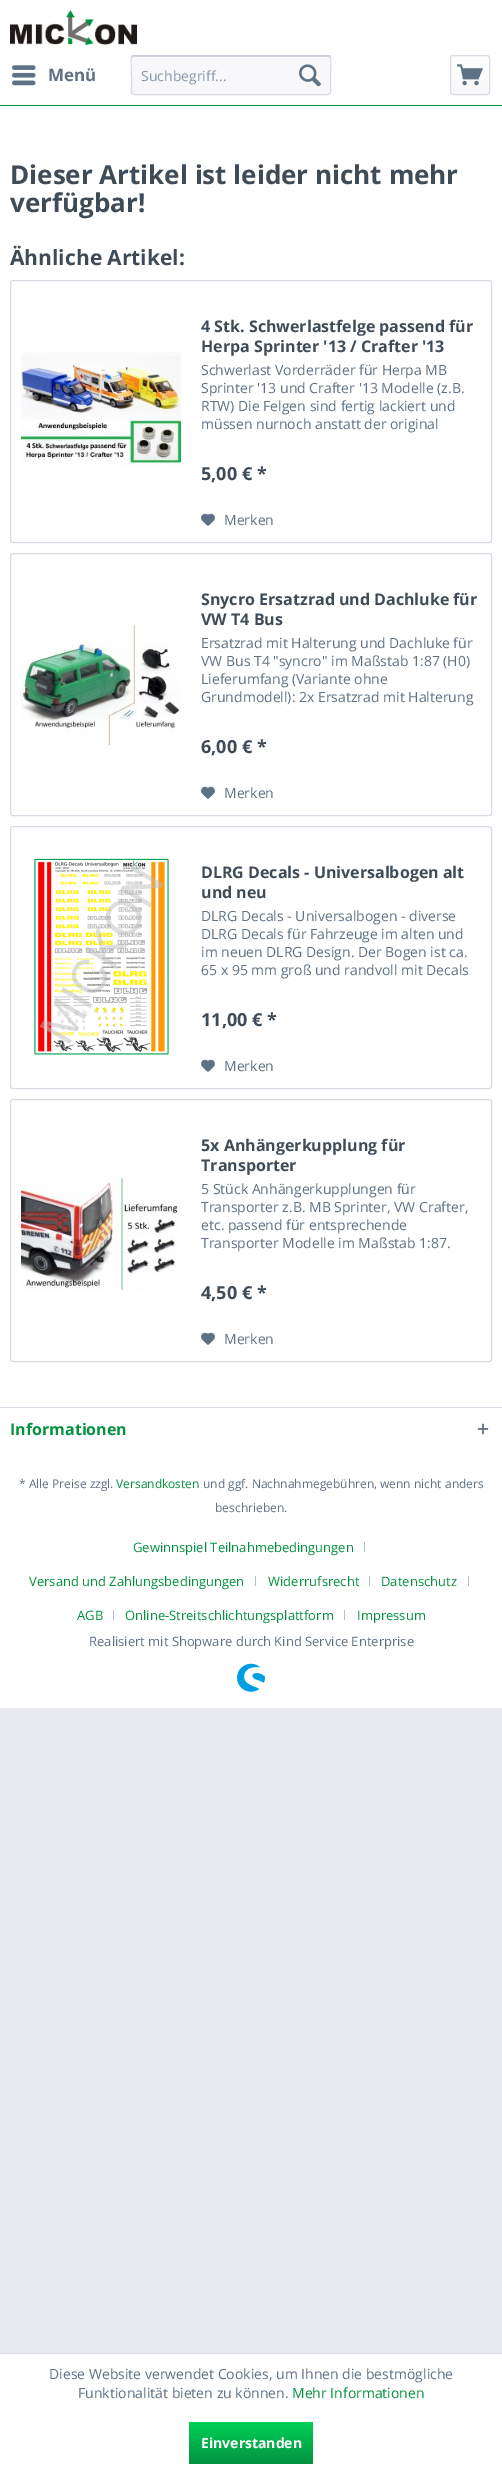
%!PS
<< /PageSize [502 2474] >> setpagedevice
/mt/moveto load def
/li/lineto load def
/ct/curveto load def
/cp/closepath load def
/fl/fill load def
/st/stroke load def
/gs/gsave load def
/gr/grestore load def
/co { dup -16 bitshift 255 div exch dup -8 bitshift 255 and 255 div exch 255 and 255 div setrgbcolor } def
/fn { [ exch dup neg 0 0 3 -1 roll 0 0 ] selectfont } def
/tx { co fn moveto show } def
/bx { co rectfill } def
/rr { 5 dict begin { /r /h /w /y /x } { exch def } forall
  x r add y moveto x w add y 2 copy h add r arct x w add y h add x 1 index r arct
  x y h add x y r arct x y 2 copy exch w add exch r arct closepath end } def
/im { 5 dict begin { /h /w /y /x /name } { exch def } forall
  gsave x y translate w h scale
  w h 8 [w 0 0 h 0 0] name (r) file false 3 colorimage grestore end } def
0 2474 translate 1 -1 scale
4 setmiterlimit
0 0 502 2474 16#E9E9F0 bx
0 0 502 105 16#FFFFFF bx
0 105 502 1 16#03913F bx
(media/1.raw) 10 10 127 35 im
(media/2.raw) 12 65 24 21 im
16#F8F8FA co
131 55 200 40 3 rr fl
16#DADAE5 co
134 57 mt 328 57 li 330 58 li 330 59 li 330 58 330 56 328 56 ct 134 56 li 132 56 132 58 132 59 ct 132 58 133 57 134 57 ct cp fl
16#CBCBDB co
132 56 mt 134 55.5 li 328 55.5 li 330 56 li st
16#DADAE5 co
330 56 mt 331.5 58 330.5 72 330.5 75 ct 330.5 86.5 li 330.5 88 332 94.5 328 94.5 ct 134 94.5 li 130 94.5 131.5 88 131.5 86.5 ct 131.5 75 li 131.5 72 130.5 58 132 56 ct st
(media/3.raw) 299 64 22 23 im
gs 451 56 38 38 2 rr clip newpath
<< /ShadingType 2 /ColorSpace /DeviceRGB /Coords [470 56 470 94] /Extend [true true] /Function << /FunctionType 2 /Domain [0 1] /C0 [1 1 1] /C1 [.973 .973 .98] /N 1 >> >> shfill gr
450.5 55.5 39 39 2.5 rr st
(media/4.raw) 457 64 26 22 im
0 106 502 1301 16#FFFFFF bx
16#DADAE5 co
10.5 280.5 481 262 2.5 rr st
(media/5.raw) 21 352 160 115 im
(media/6.raw) 201 513 14 13 im
10.5 553.5 481 262 2.5 rr st
(media/7.raw) 21 625 160 120 im
(media/6.raw) 201 786 14 13 im
10.5 826.5 481 262 2.5 rr st
(media/8.raw) 34 858 135 197 im
(media/6.raw) 201 1059 14 13 im
10.5 1099.5 481 262 2.5 rr st
(media/9.raw) 21 1176 160 114 im
(media/6.raw) 201 1332 14 13 im
0 1408 502 300 16#FFFFFF bx
0 1407 502 1 16#DADAE5 bx
(media/10.raw) 477 1423 12 12 im
364 1542 1 10 16#BCBCD0 bx
255 1576 1 10 16#BCBCD0 bx
369 1576 1 10 16#BCBCD0 bx
468 1576 1 10 16#BCBCD0 bx
113 1610 1 10 16#BCBCD0 bx
344 1610 1 10 16#BCBCD0 bx
(media/11.raw) 237 1663 28 29 im
0 2354 502 120 16#FFFFFF bx
0 2353 502 1 16#DADAE5 bx
gs 189 2422 124 42 3 rr clip newpath
<< /ShadingType 2 /ColorSpace /DeviceRGB /Coords [251 2422 251 2464] /Extend [true true] /Function << /FunctionType 2 /Domain [0 1] /C0 [0 .82 .345] /C1 [.012 .569 .247] /N 1 >> >> shfill gr
(Menü) 48 81 /OpenSans-Bold 17 16#5F7285 tx
(Suchbegriff...) 141 81 /OpenSans-Regular 14 16#8798A9 tx
(Dieser Artikel ist leider nicht mehr) 10 184 /OpenSans-Bold 26 16#3F4C58 tx
(verfügbar!) 10 212 /OpenSans-Bold 26 16#3F4C58 tx
(Ähnliche Artikel:) 10 265 /OpenSans-Bold 21 16#3F4C58 tx
(4 Stk. Schwerlastfelge passend für) 201 332 /OpenSans-Bold 16 16#3F4C58 tx
(Herpa Sprinter '13 / Crafter '13) 201 352 /OpenSans-Bold 16 16#3F4C58 tx
(Schwerlast Vorderräder für Herpa MB) 201 375 /OpenSans-Regular 14 16#5F7285 tx
(Sprinter '13 und Crafter '13 Modelle \(z.B.) 201 393 /OpenSans-Regular 14 16#5F7285 tx
(RTW\) Die Felgen sind fertig lackiert und) 201 411 /OpenSans-Regular 14 16#5F7285 tx
(müssen nurnoch anstatt der original) 201 429 /OpenSans-Regular 14 16#5F7285 tx
(5,00 € *) 201 480 /OpenSans-Bold 18 16#3F4C58 tx
(Merken) 224 525 /OpenSans-Regular 14 16#5F7285 tx
(Snycro Ersatzrad und Dachluke für) 201 605 /OpenSans-Bold 16 16#3F4C58 tx
(VW T4 Bus) 201 625 /OpenSans-Bold 16 16#3F4C58 tx
(Ersatzrad mit Halterung und Dachluke für) 201 648 /OpenSans-Regular 14 16#5F7285 tx
(VW Bus T4 "syncro" im Maßstab 1:87 \(H0\)) 201 666 /OpenSans-Regular 14 16#5F7285 tx
(Lieferumfang \(Variante ohne) 201 684 /OpenSans-Regular 14 16#5F7285 tx
(Grundmodell\): 2x Ersatzrad mit Halterung) 201 702 /OpenSans-Regular 14 16#5F7285 tx
(6,00 € *) 201 753 /OpenSans-Bold 18 16#3F4C58 tx
(Merken) 224 798 /OpenSans-Regular 14 16#5F7285 tx
(DLRG Decals - Universalbogen alt) 201 878 /OpenSans-Bold 16 16#3F4C58 tx
(und neu) 201 898 /OpenSans-Bold 16 16#3F4C58 tx
(DLRG Decals - Universalbogen - diverse) 201 921 /OpenSans-Regular 14 16#5F7285 tx
(DLRG Decals für Fahrzeuge im alten und) 201 939 /OpenSans-Regular 14 16#5F7285 tx
(im neuen DLRG Design. Der Bogen ist ca.) 201 957 /OpenSans-Regular 14 16#5F7285 tx
(65 x 95 mm groß und randvoll mit Decals) 201 975 /OpenSans-Regular 14 16#5F7285 tx
(11,00 € *) 201 1026 /OpenSans-Bold 18 16#3F4C58 tx
(Merken) 224 1071 /OpenSans-Regular 14 16#5F7285 tx
(5x Anhängerkupplung für) 201 1151 /OpenSans-Bold 16 16#3F4C58 tx
(Transporter) 201 1171 /OpenSans-Bold 16 16#3F4C58 tx
(5 Stück Anhängerkupplungen für) 201 1194 /OpenSans-Regular 14 16#5F7285 tx
(Transporter z.B. MB Sprinter, VW Crafter,) 201 1212 /OpenSans-Regular 14 16#5F7285 tx
(etc. passend für entsprechende) 201 1230 /OpenSans-Regular 14 16#5F7285 tx
(Transporter Modelle im Maßstab 1:87.) 201 1248 /OpenSans-Regular 14 16#5F7285 tx
(4,50 € *) 201 1299 /OpenSans-Bold 18 16#3F4C58 tx
(Merken) 224 1344 /OpenSans-Regular 14 16#5F7285 tx
(Informationen) 10 1435 /OpenSans-Bold 16 16#03913F tx
(* Alle Preise zzgl.) 19 1488 /OpenSans-Regular 12 16#5F7285 tx
(Versandkosten) 116 1488 /OpenSans-Regular 12 16#03913F tx
(und ggf. Nachnahmegebühren, wenn nicht anders) 203 1488 /OpenSans-Regular 12 16#5F7285 tx
(beschrieben.) 215 1512 /OpenSans-Regular 12 16#5F7285 tx
(Gewinnspiel Teilnahmebedingungen) 133 1552 /OpenSans-Regular 13 16#03913F tx
(Versand und Zahlungsbedingungen) 29 1586 /OpenSans-Regular 13 16#03913F tx
(Widerrufsrecht) 268 1586 /OpenSans-Regular 13 16#03913F tx
(Datenschutz) 381 1586 /OpenSans-Regular 13 16#03913F tx
(AGB) 77 1620 /OpenSans-Regular 13 16#03913F tx
(Online-Streitschlichtungsplattform) 125 1620 /OpenSans-Regular 13 16#03913F tx
(Impressum) 357 1620 /OpenSans-Regular 13 16#03913F tx
(Realisiert mit Shopware durch Kind Service Enterprise) 89 1646 /OpenSans-Regular 13 16#5F7285 tx
(Diese Website verwendet Cookies, um Ihnen die bestmögliche) 49 2379 /OpenSans-Regular 14 16#5F7285 tx
(Funktionalität bieten zu können.) 78 2398 /OpenSans-Regular 14 16#5F7285 tx
(Mehr Informationen) 292 2398 /OpenSans-Regular 14 16#03913F tx
(Einverstanden) 201 2448 /OpenSans-Bold 14 16#FFFFFF tx
showpage
